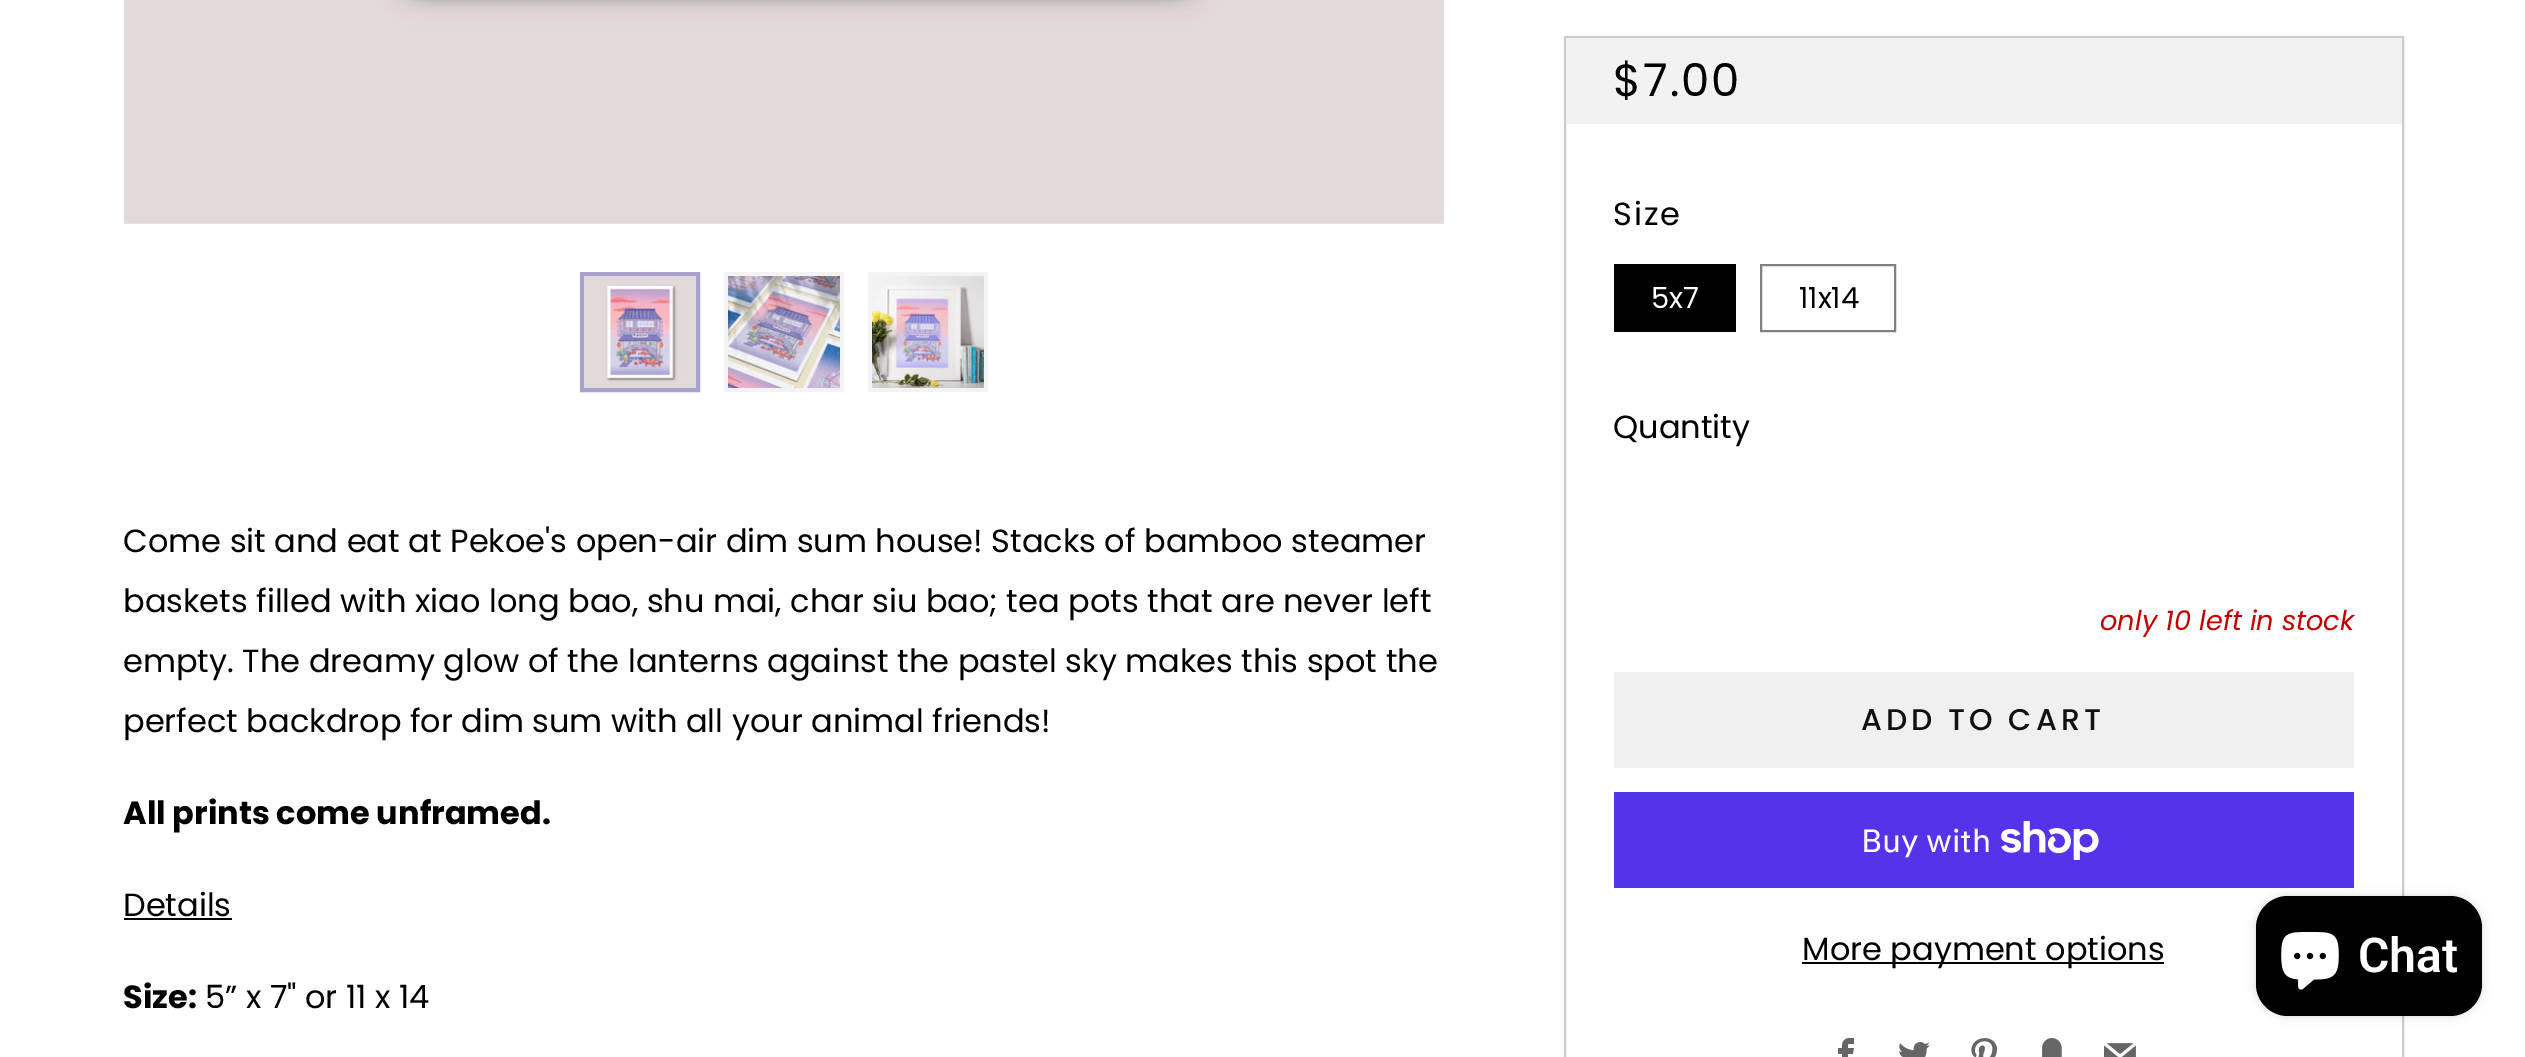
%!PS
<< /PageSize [2525 1057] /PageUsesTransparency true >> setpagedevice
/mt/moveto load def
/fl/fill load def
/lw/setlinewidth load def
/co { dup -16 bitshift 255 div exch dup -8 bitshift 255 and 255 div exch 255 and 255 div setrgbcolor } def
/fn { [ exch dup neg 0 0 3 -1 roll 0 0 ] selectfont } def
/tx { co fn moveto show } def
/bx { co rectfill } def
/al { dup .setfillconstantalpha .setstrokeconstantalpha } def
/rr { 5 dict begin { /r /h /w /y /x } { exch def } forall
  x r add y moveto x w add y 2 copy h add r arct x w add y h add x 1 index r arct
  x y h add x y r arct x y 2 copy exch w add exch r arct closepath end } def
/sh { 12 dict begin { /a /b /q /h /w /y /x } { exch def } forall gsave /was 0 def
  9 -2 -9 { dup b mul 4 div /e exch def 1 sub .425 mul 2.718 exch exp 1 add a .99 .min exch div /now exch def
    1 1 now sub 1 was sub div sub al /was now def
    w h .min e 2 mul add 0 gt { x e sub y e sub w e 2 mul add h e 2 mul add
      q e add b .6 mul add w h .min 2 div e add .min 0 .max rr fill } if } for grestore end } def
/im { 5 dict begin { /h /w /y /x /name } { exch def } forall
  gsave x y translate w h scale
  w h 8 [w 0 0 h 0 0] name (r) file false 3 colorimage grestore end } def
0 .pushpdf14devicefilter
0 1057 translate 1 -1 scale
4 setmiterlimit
0 0 2525 1057 16#FFFFFF bx
(media/1.raw) 124 0 1320 224 im
16#AAA1CE co
4 lw
582 274 116 116 rectstroke
(media/2.raw) 584 276 112 112 im
724 272 120 120 16#F3F3F3 bx
(media/3.raw) 728 276 112 112 im
868 272 120 120 16#F3F3F3 bx
(media/4.raw) 872 276 112 112 im
124 918 108 2 16#000000 bx
16#CCCCCC co
2 lw
1565 37 838 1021 rectstroke
1566 38 836 86 16#F2F2F2 bx
1614 264 122 68 16#000000 bx
16#808080 co
1761 265 134 66 rectstroke
1614 672 740 96 16#F0F0F0 bx
1614 792 740 96 16#5433EB bx
(media/5.raw) 2001 821 98 39 im
1802 962 362 2 16#000000 bx
(media/6.raw) 1838 1038 16 19 im
(media/7.raw) 1899 1042 31 15 im
(media/8.raw) 1971 1038 26 19 im
(media/9.raw) 2042 1038 20 19 im
(media/10.raw) 2104 1043 32 14 im
2256 896 226 120 32 5 .15 sh
2256 896 226 120 32 rr fl
(media/11.raw) 2281 932 58 58 im
(Come sit and eat at Pekoe's open-air dim sum house! Stacks of bamboo steamer) 123 552 /Poppins-Regular 32 16#000000 tx
(baskets filled with xiao long bao, shu mai, char siu bao; tea pots that are never left) 123 612 /Poppins-Regular 32 16#000000 tx
(empty. The dreamy glow of the lanterns against the pastel sky makes this spot the) 123 672 /Poppins-Regular 32 16#000000 tx
(perfect backdrop for dim sum with all your animal friends!) 123 732 /Poppins-Regular 32 16#000000 tx
(All prints come unframed.) 123 824 /Poppins-Bold 32 16#000000 tx
(Details) 123 916 /Poppins-Regular 32 16#000000 tx
(Size:) 123 1008 /Poppins-Bold 32 16#000000 tx
(5” x 7" or 11 x 14) 205 1008 /Poppins-Regular 32 16#000000 tx
/Poppins-Regular 45 fn
1613 96 mt 2 0 ($7.00) ashow
/Poppins-Regular 32 fn
1613 225 mt 2 0 (Size) ashow
(5x7) 1651 308 /Poppins-Regular 29 16#FFFFFF tx
(11x14) 1799 308 /Poppins-Regular 29 16#000000 tx
(Quantity) 1613 438 /Poppins-Regular 32 16#000000 tx
(only 10 left in stock) 2100 630 /Poppins-Italic 27.25 16#C00000 tx
/Poppins-Medium 30 fn
16#111111 co
1861 730 mt 4 0 (ADD TO CART) ashow
(Buy with) 1861 852 /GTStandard-Regular 32 16#FFFFFF tx
(More payment options) 1802 960 /Poppins-Regular 32 16#000000 tx
(Chat) 2358 972 /Roboto-SemiBold 48 16#FFFFFF tx
.poppdf14devicefilter showpage
